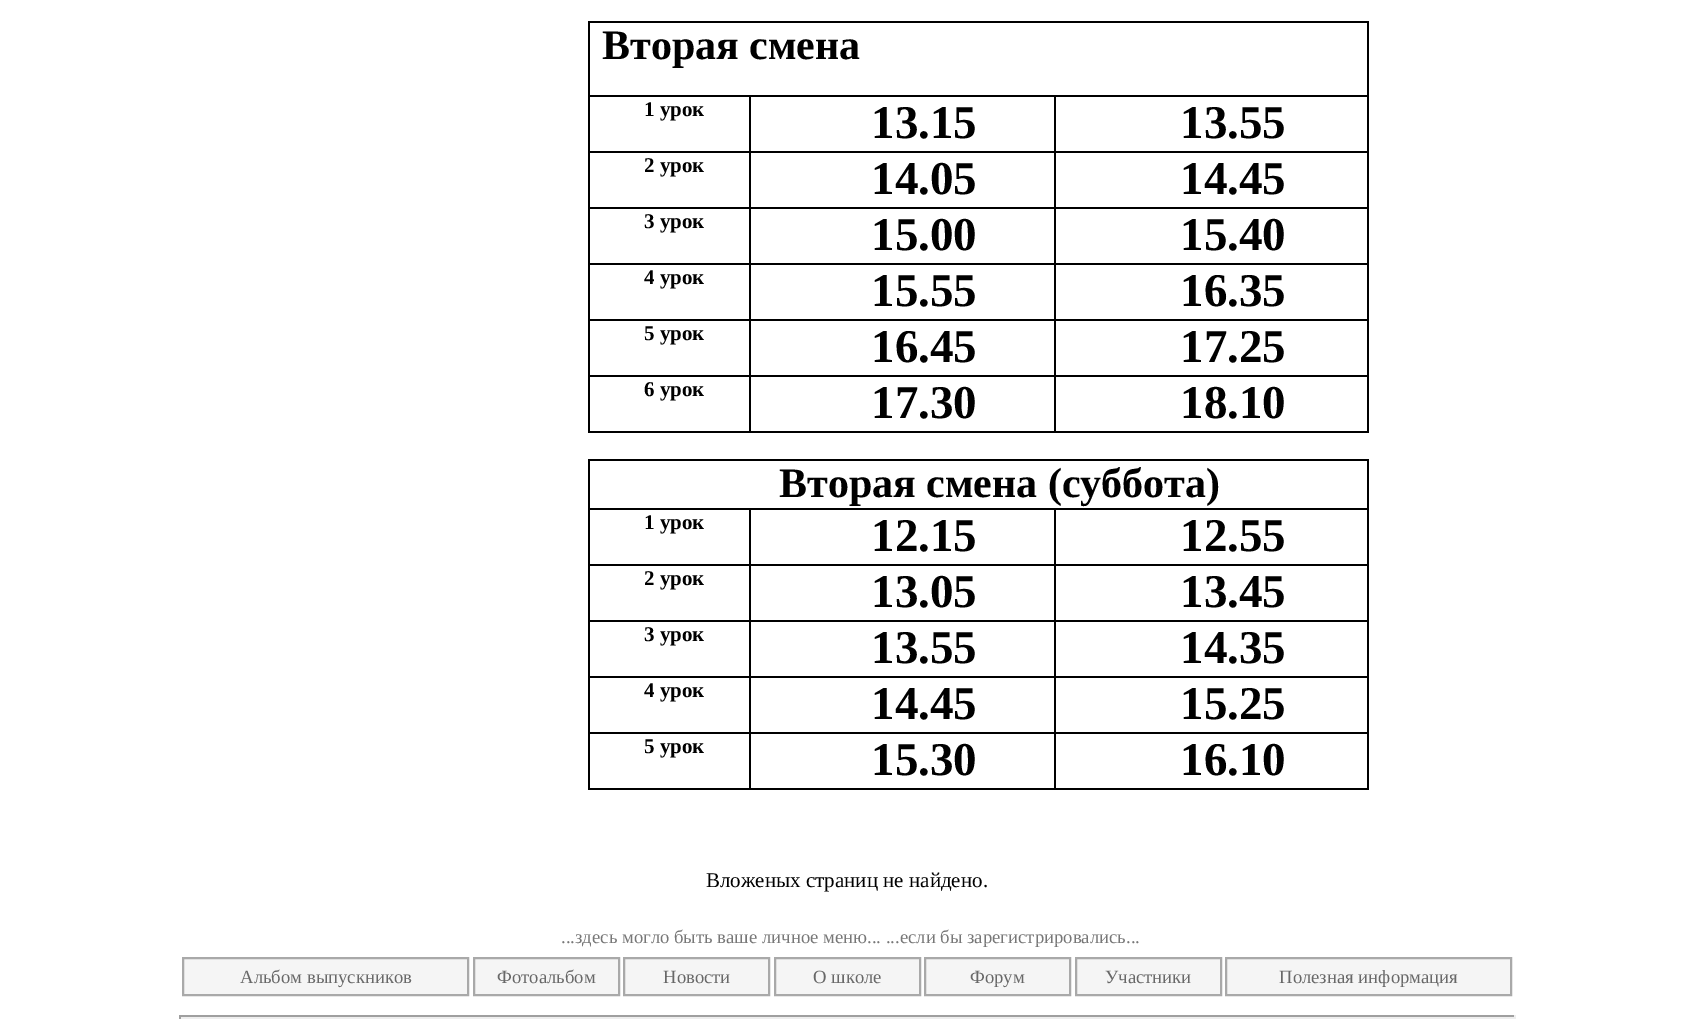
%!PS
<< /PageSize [1694 1026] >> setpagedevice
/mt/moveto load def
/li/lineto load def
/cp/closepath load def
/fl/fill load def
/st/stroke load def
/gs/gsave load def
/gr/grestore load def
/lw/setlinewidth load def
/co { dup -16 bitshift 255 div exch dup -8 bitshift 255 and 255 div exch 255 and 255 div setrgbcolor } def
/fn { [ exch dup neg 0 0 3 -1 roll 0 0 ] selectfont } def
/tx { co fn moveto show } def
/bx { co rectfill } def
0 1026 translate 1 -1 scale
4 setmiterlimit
0 0 1694 1026 16#FFFFFF bx
588 21 781 2 16#000000 bx
1367 95 2 337 16#000000 bx
1367 21 2 75 16#000000 bx
1054 431 315 2 16#000000 bx
1054 375 2 57 16#000000 bx
1054 375 315 2 16#000000 bx
1054 319 2 57 16#000000 bx
1054 319 315 2 16#000000 bx
1054 263 2 57 16#000000 bx
1054 263 315 2 16#000000 bx
1054 207 2 57 16#000000 bx
1054 207 315 2 16#000000 bx
1054 151 2 57 16#000000 bx
1054 151 315 2 16#000000 bx
1054 95 2 57 16#000000 bx
749 431 306 2 16#000000 bx
749 375 2 57 16#000000 bx
749 375 306 2 16#000000 bx
749 319 2 57 16#000000 bx
749 319 306 2 16#000000 bx
749 263 2 57 16#000000 bx
749 263 306 2 16#000000 bx
749 207 2 57 16#000000 bx
749 207 306 2 16#000000 bx
749 151 2 57 16#000000 bx
749 151 306 2 16#000000 bx
749 95 2 57 16#000000 bx
588 431 163 2 16#000000 bx
588 375 2 57 16#000000 bx
588 375 163 2 16#000000 bx
588 319 2 57 16#000000 bx
588 319 163 2 16#000000 bx
588 263 2 57 16#000000 bx
588 263 163 2 16#000000 bx
588 207 2 57 16#000000 bx
588 207 163 2 16#000000 bx
588 151 2 57 16#000000 bx
588 151 163 2 16#000000 bx
588 95 2 57 16#000000 bx
588 95 781 2 16#000000 bx
588 21 2 75 16#000000 bx
588 459 781 2 16#000000 bx
1367 508 2 281 16#000000 bx
1367 459 2 50 16#000000 bx
1054 788 315 2 16#000000 bx
1054 732 2 57 16#000000 bx
1054 732 315 2 16#000000 bx
1054 676 2 57 16#000000 bx
1054 676 315 2 16#000000 bx
1054 620 2 57 16#000000 bx
1054 620 315 2 16#000000 bx
1054 564 2 57 16#000000 bx
1054 564 315 2 16#000000 bx
1054 508 2 57 16#000000 bx
749 788 306 2 16#000000 bx
749 732 2 57 16#000000 bx
749 732 306 2 16#000000 bx
749 676 2 57 16#000000 bx
749 676 306 2 16#000000 bx
749 620 2 57 16#000000 bx
749 620 306 2 16#000000 bx
749 564 2 57 16#000000 bx
749 564 306 2 16#000000 bx
749 508 2 57 16#000000 bx
588 788 163 2 16#000000 bx
588 732 2 57 16#000000 bx
588 732 163 2 16#000000 bx
588 676 2 57 16#000000 bx
588 676 163 2 16#000000 bx
588 620 2 57 16#000000 bx
588 620 163 2 16#000000 bx
588 564 2 57 16#000000 bx
588 564 163 2 16#000000 bx
588 508 2 57 16#000000 bx
588 508 781 2 16#000000 bx
588 459 2 50 16#000000 bx
16#F5F5F5 co
183 958 mt 468 958 li 468 995 li 183 995 li cp gs fl gr
16#A9A9A9 co
2 lw
st
16#F5F5F5 co
474 958 mt 619 958 li 619 995 li 474 995 li cp gs fl gr
16#A9A9A9 co
st
16#F5F5F5 co
624 958 mt 769 958 li 769 995 li 624 995 li cp gs fl gr
16#A9A9A9 co
st
16#F5F5F5 co
775 958 mt 920 958 li 920 995 li 775 995 li cp gs fl gr
16#A9A9A9 co
st
16#F5F5F5 co
925 958 mt 1070 958 li 1070 995 li 925 995 li cp gs fl gr
16#A9A9A9 co
st
16#F5F5F5 co
1076 958 mt 1221 958 li 1221 995 li 1076 995 li cp gs fl gr
16#A9A9A9 co
st
16#F5F5F5 co
1226 958 mt 1511 958 li 1511 995 li 1226 995 li cp gs fl gr
16#A9A9A9 co
st
179 1015 1337 2 16#9F9F9F bx
1514 1015 2 4 16#EEEEEE bx
179 1017 1337 2 16#EEEEEE bx
179 1015 2 4 16#9F9F9F bx
(Вторая смена) 602 59 /LiberationSerif-Bold 42 16#000000 tx
(1 урок) 644 116 /LiberationSerif-Bold 21 16#000000 tx
(13.15) 871 138 /LiberationSerif-Bold 47 16#000000 tx
(13.55) 1180 138 /LiberationSerif-Bold 47 16#000000 tx
(2 урок) 644 172 /LiberationSerif-Bold 21 16#000000 tx
(14.05) 871 194 /LiberationSerif-Bold 47 16#000000 tx
(14.45) 1180 194 /LiberationSerif-Bold 47 16#000000 tx
(3 урок) 644 228 /LiberationSerif-Bold 21 16#000000 tx
(15.00) 871 250 /LiberationSerif-Bold 47 16#000000 tx
(15.40) 1180 250 /LiberationSerif-Bold 47 16#000000 tx
(4 урок) 644 284 /LiberationSerif-Bold 21 16#000000 tx
(15.55) 871 306 /LiberationSerif-Bold 47 16#000000 tx
(16.35) 1180 306 /LiberationSerif-Bold 47 16#000000 tx
(5 урок) 644 340 /LiberationSerif-Bold 21 16#000000 tx
(16.45) 871 362 /LiberationSerif-Bold 47 16#000000 tx
(17.25) 1180 362 /LiberationSerif-Bold 47 16#000000 tx
(6 урок) 644 396 /LiberationSerif-Bold 21 16#000000 tx
(17.30) 871 418 /LiberationSerif-Bold 47 16#000000 tx
(18.10) 1180 418 /LiberationSerif-Bold 47 16#000000 tx
(Вторая смена \(суббота\)) 779 497 /LiberationSerif-Bold 42 16#000000 tx
(1 урок) 644 529 /LiberationSerif-Bold 21 16#000000 tx
(12.15) 871 551 /LiberationSerif-Bold 47 16#000000 tx
(12.55) 1180 551 /LiberationSerif-Bold 47 16#000000 tx
(2 урок) 644 585 /LiberationSerif-Bold 21 16#000000 tx
(13.05) 871 607 /LiberationSerif-Bold 47 16#000000 tx
(13.45) 1180 607 /LiberationSerif-Bold 47 16#000000 tx
(3 урок) 644 641 /LiberationSerif-Bold 21 16#000000 tx
(13.55) 871 663 /LiberationSerif-Bold 47 16#000000 tx
(14.35) 1180 663 /LiberationSerif-Bold 47 16#000000 tx
(4 урок) 644 697 /LiberationSerif-Bold 21 16#000000 tx
(14.45) 871 719 /LiberationSerif-Bold 47 16#000000 tx
(15.25) 1180 719 /LiberationSerif-Bold 47 16#000000 tx
(5 урок) 644 753 /LiberationSerif-Bold 21 16#000000 tx
(15.30) 871 775 /LiberationSerif-Bold 47 16#000000 tx
(16.10) 1180 775 /LiberationSerif-Bold 47 16#000000 tx
(Вложеных страниц не найдено.) 706 887 /LiberationSerif-Regular 21 16#000000 tx
(...здесь могло быть ваше личное меню... ...если бы зарегистрировались...) 561 943 /LiberationSerif-Regular 18.7 16#777777 tx
(Альбом выпускников) 240 983 /LiberationSerif-Regular 18.7 16#686868 tx
(Фотоальбом) 497 983 /LiberationSerif-Regular 18.7 16#686868 tx
(Новости) 663 983 /LiberationSerif-Regular 18.7 16#686868 tx
(О школе) 813 983 /LiberationSerif-Regular 18.7 16#686868 tx
(Форум) 970 983 /LiberationSerif-Regular 18.7 16#686868 tx
(Участники) 1105 983 /LiberationSerif-Regular 18.7 16#686868 tx
(Полезная информация) 1279 983 /LiberationSerif-Regular 18.7 16#686868 tx
showpage
